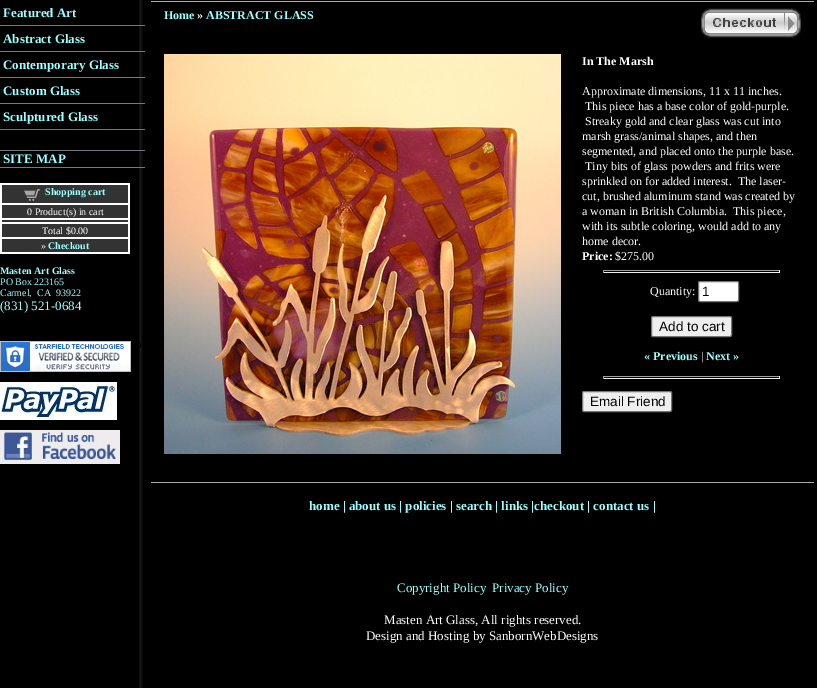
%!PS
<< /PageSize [817 688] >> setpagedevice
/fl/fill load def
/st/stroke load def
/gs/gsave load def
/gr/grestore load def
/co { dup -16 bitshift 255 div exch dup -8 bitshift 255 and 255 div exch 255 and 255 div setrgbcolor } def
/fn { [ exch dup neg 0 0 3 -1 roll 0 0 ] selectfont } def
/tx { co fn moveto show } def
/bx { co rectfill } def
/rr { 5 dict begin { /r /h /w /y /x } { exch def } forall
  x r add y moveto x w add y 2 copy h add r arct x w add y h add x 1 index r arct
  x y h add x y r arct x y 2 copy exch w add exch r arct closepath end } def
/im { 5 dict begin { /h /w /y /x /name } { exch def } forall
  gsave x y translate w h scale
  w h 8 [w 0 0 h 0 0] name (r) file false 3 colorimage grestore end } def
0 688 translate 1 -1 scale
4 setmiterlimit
0 0 817 688 16#000000 bx
(media/1.raw) 139 0 4 688 im
0 25 145 1 16#767981 bx
0 51 145 1 16#767981 bx
0 77 145 1 16#767981 bx
0 103 145 1 16#767981 bx
0 129 145 1 16#767981 bx
0 150 145 1 16#767981 bx
0 167 145 1 16#767981 bx
0 183 130 71 16#FFFFFF bx
2 185 126 18 16#333333 bx
(media/2.raw) 24 189 16 12 im
2 205 126 13 16#333333 bx
2 220 126 2 16#333333 bx
2 224 126 13 16#333333 bx
2 239 126 13 16#333333 bx
(media/3.raw) 0 341 141 31 im
(media/4.raw) 0 382 117 38 im
(media/5.raw) 0 430 120 34 im
151 1 663 1 16#AAAAAF bx
(media/6.raw) 701 8 100 30 im
(media/7.raw) 164 54 397 400 im
603 270 177 1 16#9F9F9F bx
779 270 1 3 16#EEEEEE bx
603 272 177 1 16#EEEEEE bx
603 270 1 3 16#9F9F9F bx
16#FFFFFF co
698.5 281.5 40 20 1.5 rr gs fl gr
16#767676 co
st
16#EFEFEF co
651.5 316.5 80 20 1.5 rr gs fl gr
16#767676 co
st
603 376 177 1 16#9F9F9F bx
779 376 1 3 16#EEEEEE bx
603 378 177 1 16#EEEEEE bx
603 376 1 3 16#9F9F9F bx
16#EFEFEF co
582.5 391.5 89 20 1.5 rr gs fl gr
16#767676 co
st
151 482 663 1 16#AAAAAF bx
(Featured Art) 3 17 /LiberationSerif-Bold 13 16#99FFFF tx
(Abstract Glass) 3 43 /LiberationSerif-Bold 13 16#99FFFF tx
(Contemporary Glass) 3 69 /LiberationSerif-Bold 13 16#99FFFF tx
(Custom Glass) 3 95 /LiberationSerif-Bold 13 16#99FFFF tx
(Sculptured Glass) 3 121 /LiberationSerif-Bold 13 16#99FFFF tx
(SITE MAP) 3 163 /LiberationSerif-Bold 13 16#99FFFF tx
(Shopping cart) 45 195 /LiberationSerif-Bold 10 16#99FFFF tx
(0 Product\(s\) in cart) 27 215 /LiberationSerif-Regular 10 16#FFFFFF tx
(Total $0.00) 42 234 /LiberationSerif-Regular 10 16#FFFFFF tx
(») 41 249 /LiberationSerif-Regular 10 16#FFFFFF tx
(Checkout) 48 249 /LiberationSerif-Bold 10 16#99FFFF tx
(Masten Art Glass) 0 274 /LiberationSerif-Bold 10 16#99FFFF tx
(PO Box 223165) 0 285 /LiberationSerif-Regular 10 16#99FFFF tx
(Carmel,  CA  93922) 0 296 /LiberationSerif-Regular 10 16#99FFFF tx
(\(831\) 521-0684) 0 310 /LiberationSerif-Regular 13 16#99FFFF tx
(Home) 164 19 /LiberationSerif-Bold 12 16#99FFFF tx
(») 197 19 /LiberationSerif-Bold 12 16#FFFFFF tx
(ABSTRACT GLASS) 206 19 /LiberationSerif-Bold 12 16#99FFFF tx
(In The Marsh) 582 65 /LiberationSerif-Bold 12 16#FFFFFF tx
(Approximate dimensions, 11 x 11 inches.) 582 95 /LiberationSerif-Regular 12 16#FFFFFF tx
(This piece has a base color of gold-purple.) 585 110 /LiberationSerif-Regular 12 16#FFFFFF tx
(Streaky gold and clear glass was cut into) 585 125 /LiberationSerif-Regular 12 16#FFFFFF tx
(marsh grass/animal shapes, and then) 582 140 /LiberationSerif-Regular 12 16#FFFFFF tx
(segmented, and placed onto the purple base.) 582 155 /LiberationSerif-Regular 12 16#FFFFFF tx
(Tiny bits of glass powders and frits were) 585 170 /LiberationSerif-Regular 12 16#FFFFFF tx
(sprinkled on for added interest.  The laser-) 582 185 /LiberationSerif-Regular 12 16#FFFFFF tx
(cut, brushed aluminum stand was created by) 582 200 /LiberationSerif-Regular 12 16#FFFFFF tx
(a woman in British Columbia.  This piece,) 582 215 /LiberationSerif-Regular 12 16#FFFFFF tx
(with its subtle coloring, would add to any) 582 230 /LiberationSerif-Regular 12 16#FFFFFF tx
(home decor.) 582 245 /LiberationSerif-Regular 12 16#FFFFFF tx
(Price:) 582 260 /LiberationSerif-Bold 12 16#FFFFFF tx
($275.00) 615 260 /LiberationSerif-Regular 12 16#FFFFFF tx
(Quantity:) 650 295 /LiberationSerif-Regular 12 16#FFFFFF tx
(1) 702 296 /LiberationSans-Regular 13.5 16#000000 tx
(Add to cart) 659 331 /LiberationSans-Regular 13.5 16#000000 tx
(« Previous) 644 360 /LiberationSerif-Bold 12 16#99FFFF tx
(|) 701 360 /LiberationSerif-Regular 12 16#FFFFFF tx
(Next ») 706 360 /LiberationSerif-Bold 12 16#99FFFF tx
(Email Friend) 590 406 /LiberationSans-Regular 13.5 16#000000 tx
(home | about us | policies | search | links |checkout | contact us |) 309 510 /LiberationSerif-Bold 13 16#99FFFF tx
(Copyright Policy) 397 592 /LiberationSerif-Regular 13 16#99FFFF tx
(Privacy Policy) 492 592 /LiberationSerif-Regular 13 16#99FFFF tx
(Masten Art Glass, All rights reserved.) 384 624 /LiberationSerif-Regular 13 16#FFFFFF tx
(Design and Hosting by SanbornWebDesigns) 366 640 /LiberationSerif-Regular 13 16#FFFFFF tx
showpage
